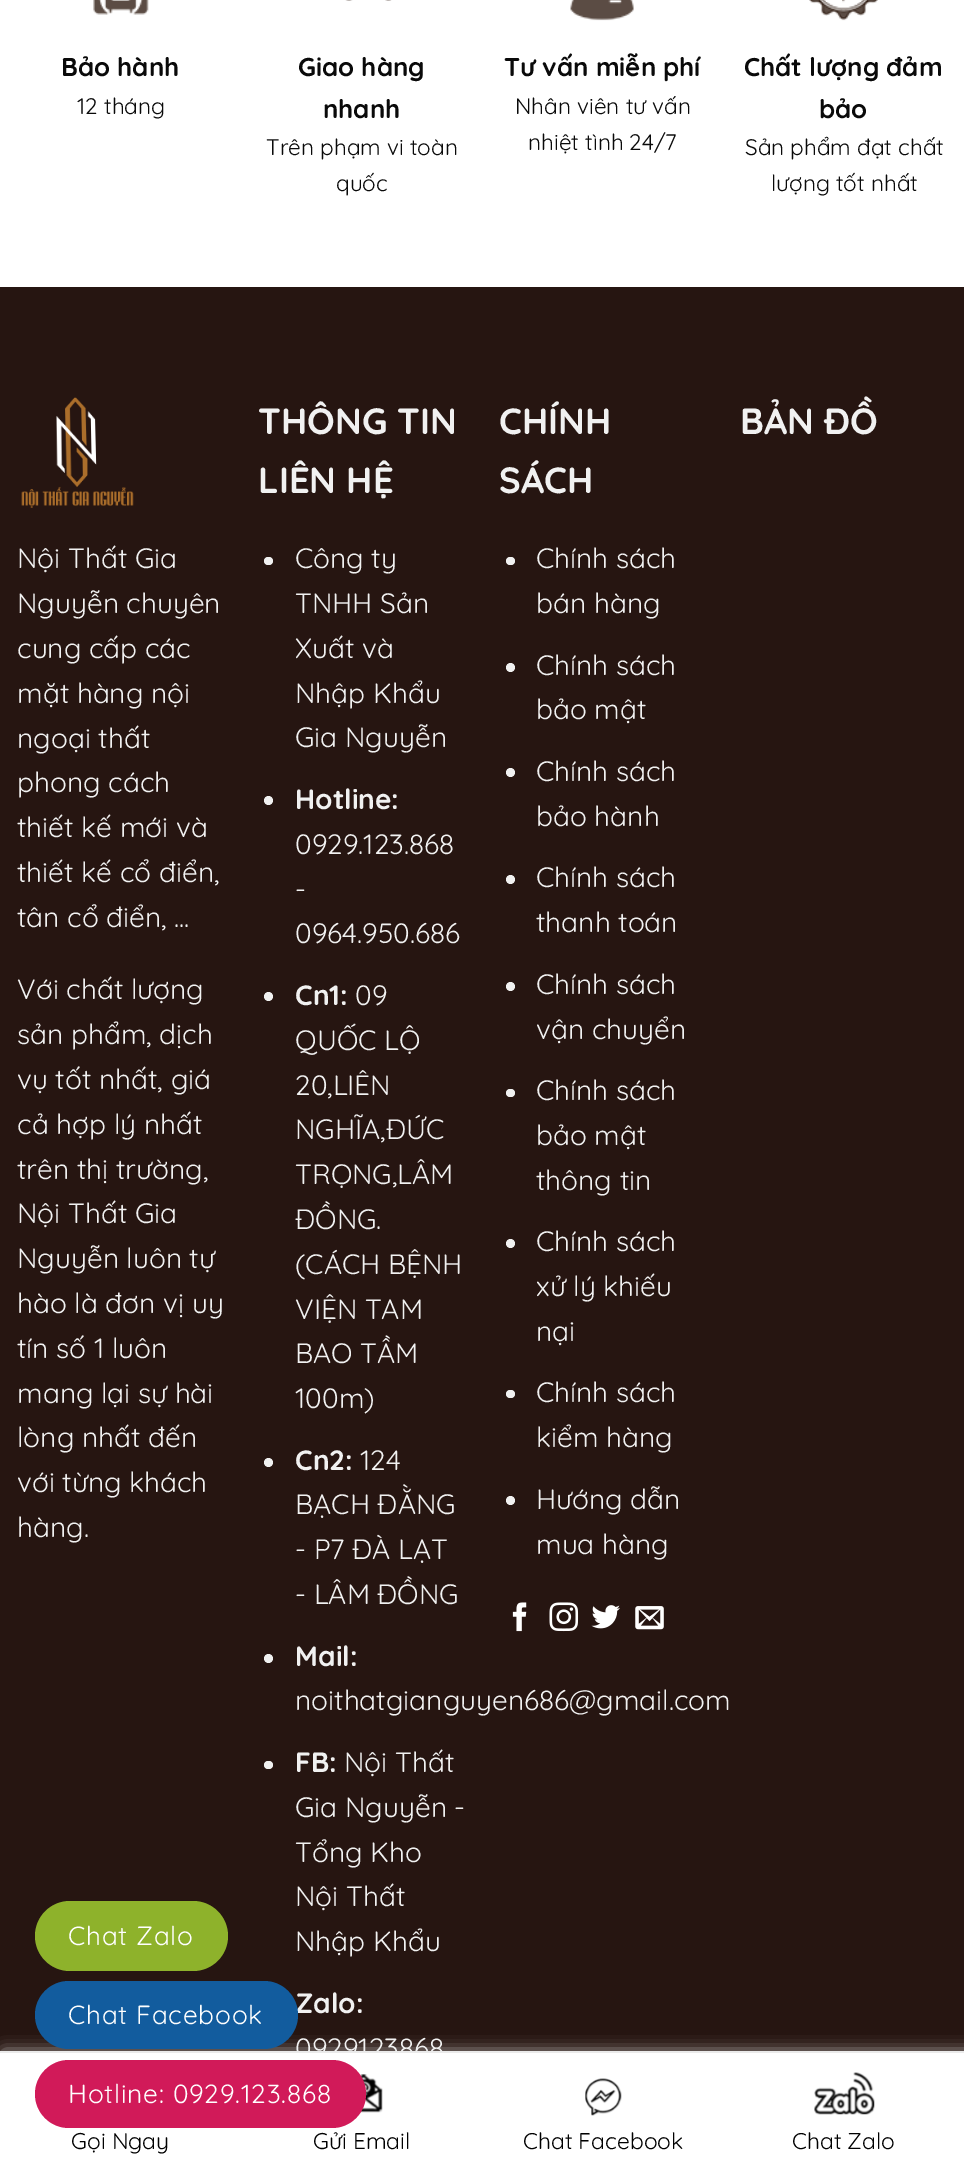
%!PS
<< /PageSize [964 2173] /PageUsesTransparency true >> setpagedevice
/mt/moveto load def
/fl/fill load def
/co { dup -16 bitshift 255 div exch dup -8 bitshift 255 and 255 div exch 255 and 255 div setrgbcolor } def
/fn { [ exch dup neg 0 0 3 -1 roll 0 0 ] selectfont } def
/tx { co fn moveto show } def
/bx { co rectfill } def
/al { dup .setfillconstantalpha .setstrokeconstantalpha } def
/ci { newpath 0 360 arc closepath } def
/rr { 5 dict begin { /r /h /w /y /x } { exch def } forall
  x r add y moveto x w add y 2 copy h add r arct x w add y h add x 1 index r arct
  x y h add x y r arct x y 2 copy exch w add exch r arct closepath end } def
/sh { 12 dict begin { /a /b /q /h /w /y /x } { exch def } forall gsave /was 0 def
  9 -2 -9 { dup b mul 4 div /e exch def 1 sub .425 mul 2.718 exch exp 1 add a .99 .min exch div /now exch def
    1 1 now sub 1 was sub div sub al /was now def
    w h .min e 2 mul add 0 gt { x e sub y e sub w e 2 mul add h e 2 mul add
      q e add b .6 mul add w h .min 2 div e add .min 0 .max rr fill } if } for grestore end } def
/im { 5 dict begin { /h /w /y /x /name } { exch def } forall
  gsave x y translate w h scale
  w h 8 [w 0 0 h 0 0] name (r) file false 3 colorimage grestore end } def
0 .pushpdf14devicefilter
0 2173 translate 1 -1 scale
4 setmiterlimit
0 0 964 2173 16#FFFFFF bx
(media/1.raw) 93 0 56 15 im
(media/2.raw) 345 0 47 1 im
(media/3.raw) 570 0 64 21 im
(media/4.raw) 809 0 69 21 im
0 287 964 1764 16#261511 bx
16#F1F1F1 co
264 557 9 8 4 rr fl
268.5 800.5 4.5 ci fl
268.5 996.5 4.5 ci fl
268.5 1462.5 4.5 ci fl
268.5 1658.5 4.5 ci fl
264 1761 9 8 4 rr fl
(media/5.raw) 21 397 113 111 im
506 557 9 8 4 rr fl
510.5 667.5 4.5 ci fl
510.5 772.5 4.5 ci fl
510.5 879.5 4.5 ci fl
510.5 986.5 4.5 ci fl
506 1089 9 8 4 rr fl
510.5 1243.5 4.5 ci fl
506 1390 9 8 4 rr fl
510.5 1500.5 4.5 ci fl
(media/6.raw) 512 1602 15 30 im
(media/7.raw) 549 1602 30 30 im
(media/8.raw) 591 1605 29 24 im
(media/9.raw) 635 1606 29 24 im
16#8EB22B co
35 1901 193 70 35 rr fl
16#DEDEDE co
4 2053 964 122 0 8 1 sh
(Bảo hành) 61 76 /Quicksand-Bold 25.75 16#0A0A0A tx
(12 tháng) 77 114 /Quicksand-Regular 22.5 16#0A0A0A tx
(Giao hàng) 298 76 /Quicksand-Bold 25.75 16#0A0A0A tx
(nhanh) 323 118 /Quicksand-Bold 25.75 16#0A0A0A tx
(Trên phạm vi toàn) 266 155 /Quicksand-Regular 22.5 16#0A0A0A tx
(quốc) 336 191 /Quicksand-Regular 22.5 16#0A0A0A tx
(Tư vấn miễn phí) 504 76 /Quicksand-Bold 25.75 16#0A0A0A tx
(Nhân viên tư vấn) 515 114 /Quicksand-Regular 22.5 16#0A0A0A tx
(nhiệt tình 24/7) 528 150 /Quicksand-Regular 22.5 16#0A0A0A tx
(Chất lượng đảm) 744 76 /Quicksand-Bold 25.75 16#0A0A0A tx
(bảo) 819 118 /Quicksand-Bold 25.75 16#0A0A0A tx
(Sản phẩm đạt chất) 745 155 /Quicksand-Regular 22.5 16#0A0A0A tx
(lượng tốt nhất) 771 191 /Quicksand-Regular 22.5 16#0A0A0A tx
(THÔNG TIN) 258 434 /Quicksand-Bold 36.5 16#F1F1F1 tx
(LIÊN HỆ) 258 493 /Quicksand-Bold 36.5 16#F1F1F1 tx
(Công ty) 295 568 /Quicksand-Regular 28 16#F1F1F1 tx
(TNHH Sản) 295 613 /Quicksand-Regular 28 16#F1F1F1 tx
(Xuất và) 295 658 /Quicksand-Regular 28 16#F1F1F1 tx
(Nhập Khẩu) 295 703 /Quicksand-Regular 28 16#F1F1F1 tx
(Gia Nguyễn) 295 747 /Quicksand-Regular 28 16#F1F1F1 tx
(Hotline:) 295 809 /Quicksand-Bold 28 16#F1F1F1 tx
(0929.123.868) 295 854 /Quicksand-Regular 28 16#F1F1F1 tx
(-) 295 899 /Quicksand-Regular 28 16#F1F1F1 tx
(0964.950.686) 295 943 /Quicksand-Regular 28 16#F1F1F1 tx
(Cn1:) 295 1005 /Quicksand-Bold 28 16#F1F1F1 tx
(09) 355 1005 /Quicksand-Regular 28 16#F1F1F1 tx
(QUỐC LỘ) 295 1050 /Quicksand-Regular 28 16#F1F1F1 tx
(20,LIÊN) 295 1095 /Quicksand-Regular 28 16#F1F1F1 tx
(NGHĨA,ĐỨC) 295 1139 /Quicksand-Regular 28 16#F1F1F1 tx
(TRỌNG,LÂM) 295 1184 /Quicksand-Regular 28 16#F1F1F1 tx
(ĐỒNG.) 295 1229 /Quicksand-Regular 28 16#F1F1F1 tx
(\(CÁCH BỆNH) 295 1274 /Quicksand-Regular 28 16#F1F1F1 tx
(VIỆN TAM) 295 1319 /Quicksand-Regular 28 16#F1F1F1 tx
(BAO TẦM) 295 1363 /Quicksand-Regular 28 16#F1F1F1 tx
(100m\)) 295 1408 /Quicksand-Regular 28 16#F1F1F1 tx
(Cn2:) 295 1470 /Quicksand-Bold 28 16#F1F1F1 tx
(124) 360 1470 /Quicksand-Regular 28 16#F1F1F1 tx
(BẠCH ĐẰNG) 295 1514 /Quicksand-Regular 28 16#F1F1F1 tx
(- P7 ĐÀ LẠT) 295 1559 /Quicksand-Regular 28 16#F1F1F1 tx
(- LÂM ĐỒNG) 295 1604 /Quicksand-Regular 28 16#F1F1F1 tx
(Mail:) 295 1666 /Quicksand-Bold 28 16#F1F1F1 tx
(noithatgianguyen686@gmail.com) 295 1710 /Quicksand-Regular 28 16#F1F1F1 tx
(FB:) 295 1772 /Quicksand-Bold 28 16#F1F1F1 tx
(Nội Thất) 344 1772 /Quicksand-Regular 28 16#F1F1F1 tx
(Gia Nguyễn -) 295 1817 /Quicksand-Regular 28 16#F1F1F1 tx
(Tổng Kho) 295 1862 /Quicksand-Regular 28 16#F1F1F1 tx
(Nội Thất) 295 1906 /Quicksand-Regular 28 16#F1F1F1 tx
(Nhập Khẩu) 295 1951 /Quicksand-Regular 28 16#F1F1F1 tx
(Zalo:) 295 2013 /Quicksand-Bold 28 16#F1F1F1 tx
(0929123868) 295 2058 /Quicksand-Regular 28 16#F1F1F1 tx
(BẢN ĐỒ) 740 434 /Quicksand-Bold 36.5 16#F1F1F1 tx
(Nội Thất Gia) 17 568 /Quicksand-Regular 28 16#F1F1F1 tx
(Nguyễn chuyên) 17 613 /Quicksand-Regular 28 16#F1F1F1 tx
(cung cấp các) 17 658 /Quicksand-Regular 28 16#F1F1F1 tx
(mặt hàng nội) 17 703 /Quicksand-Regular 28 16#F1F1F1 tx
(ngoại thất) 17 748 /Quicksand-Regular 28 16#F1F1F1 tx
(phong cách) 17 792 /Quicksand-Regular 28 16#F1F1F1 tx
(thiết kế mới và) 17 837 /Quicksand-Regular 28 16#F1F1F1 tx
(thiết kế cổ điển,) 17 882 /Quicksand-Regular 28 16#F1F1F1 tx
(tân cổ điển, ...) 17 927 /Quicksand-Regular 28 16#F1F1F1 tx
(Với chất lượng) 17 999 /Quicksand-Regular 28 16#F1F1F1 tx
(sản phẩm, dịch) 17 1044 /Quicksand-Regular 28 16#F1F1F1 tx
(vụ tốt nhất, giá) 17 1089 /Quicksand-Regular 28 16#F1F1F1 tx
(cả hợp lý nhất) 17 1134 /Quicksand-Regular 28 16#F1F1F1 tx
(trên thị trường,) 17 1179 /Quicksand-Regular 28 16#F1F1F1 tx
(Nội Thất Gia) 17 1223 /Quicksand-Regular 28 16#F1F1F1 tx
(Nguyễn luôn tự) 17 1268 /Quicksand-Regular 28 16#F1F1F1 tx
(hào là đơn vị uy) 17 1313 /Quicksand-Regular 28 16#F1F1F1 tx
(tín số 1 luôn) 17 1358 /Quicksand-Regular 28 16#F1F1F1 tx
(mang lại sự hài) 17 1403 /Quicksand-Regular 28 16#F1F1F1 tx
(lòng nhất đến) 17 1447 /Quicksand-Regular 28 16#F1F1F1 tx
(với từng khách) 17 1492 /Quicksand-Regular 28 16#F1F1F1 tx
(hàng.) 17 1537 /Quicksand-Regular 28 16#F1F1F1 tx
(CHÍNH) 499 434 /Quicksand-Bold 36.5 16#F1F1F1 tx
(SÁCH) 499 493 /Quicksand-Bold 36.5 16#F1F1F1 tx
(Chính sách) 536 568 /Quicksand-Regular 28 16#F1F1F1 tx
(bán hàng) 536 613 /Quicksand-Regular 28 16#F1F1F1 tx
(Chính sách) 536 675 /Quicksand-Regular 28 16#F1F1F1 tx
(bảo mật) 536 719 /Quicksand-Regular 28 16#F1F1F1 tx
(Chính sách) 536 781 /Quicksand-Regular 28 16#F1F1F1 tx
(bảo hành) 536 826 /Quicksand-Regular 28 16#F1F1F1 tx
(Chính sách) 536 887 /Quicksand-Regular 28 16#F1F1F1 tx
(thanh toán) 536 932 /Quicksand-Regular 28 16#F1F1F1 tx
(Chính sách) 536 994 /Quicksand-Regular 28 16#F1F1F1 tx
(vận chuyển) 536 1039 /Quicksand-Regular 28 16#F1F1F1 tx
(Chính sách) 536 1100 /Quicksand-Regular 28 16#F1F1F1 tx
(bảo mật) 536 1145 /Quicksand-Regular 28 16#F1F1F1 tx
(thông tin) 536 1190 /Quicksand-Regular 28 16#F1F1F1 tx
(Chính sách) 536 1251 /Quicksand-Regular 28 16#F1F1F1 tx
(xử lý khiếu) 536 1296 /Quicksand-Regular 28 16#F1F1F1 tx
(nại) 536 1341 /Quicksand-Regular 28 16#F1F1F1 tx
(Chính sách) 536 1402 /Quicksand-Regular 28 16#F1F1F1 tx
(kiểm hàng) 536 1447 /Quicksand-Regular 28 16#F1F1F1 tx
(Hướng dẫn) 536 1509 /Quicksand-Regular 28 16#F1F1F1 tx
(mua hàng) 536 1554 /Quicksand-Regular 28 16#F1F1F1 tx
/Quicksand-Regular 26.25 fn
16#FFFFFF co
68 1945 mt .8 0 (Chat Zalo) ashow
16#125C9E co
35 1981 263 68 34 rr fl
16#FFFFFF co
68 2024 mt .8 0 (Chat Facebook) ashow
0 2053 964 120 16#FFFFFF bx
0 2051 964 2 16#EAEAEA bx
(Gọi Ngay) 71 2149 /Quicksand-Regular 22.75 16#000000 tx
(media/10.raw) 360 2074 23 39 im
16#D11A59 co
35 2060 331 68 34 rr fl
/Quicksand-Regular 26.25 fn
16#FFFFFF co
68 2103 mt .8 0 (Hotline: 0929.123.868) ashow
(Gửi Email) 313 2149 /Quicksand-Regular 22.75 16#000000 tx
(media/11.raw) 585 2078 37 38 im
(Chat Facebook) 523 2149 /Quicksand-Regular 22.75 16#000000 tx
(media/12.raw) 814 2072 61 43 im
(Chat Zalo) 792 2149 /Quicksand-Regular 22.75 16#000000 tx
.poppdf14devicefilter showpage
